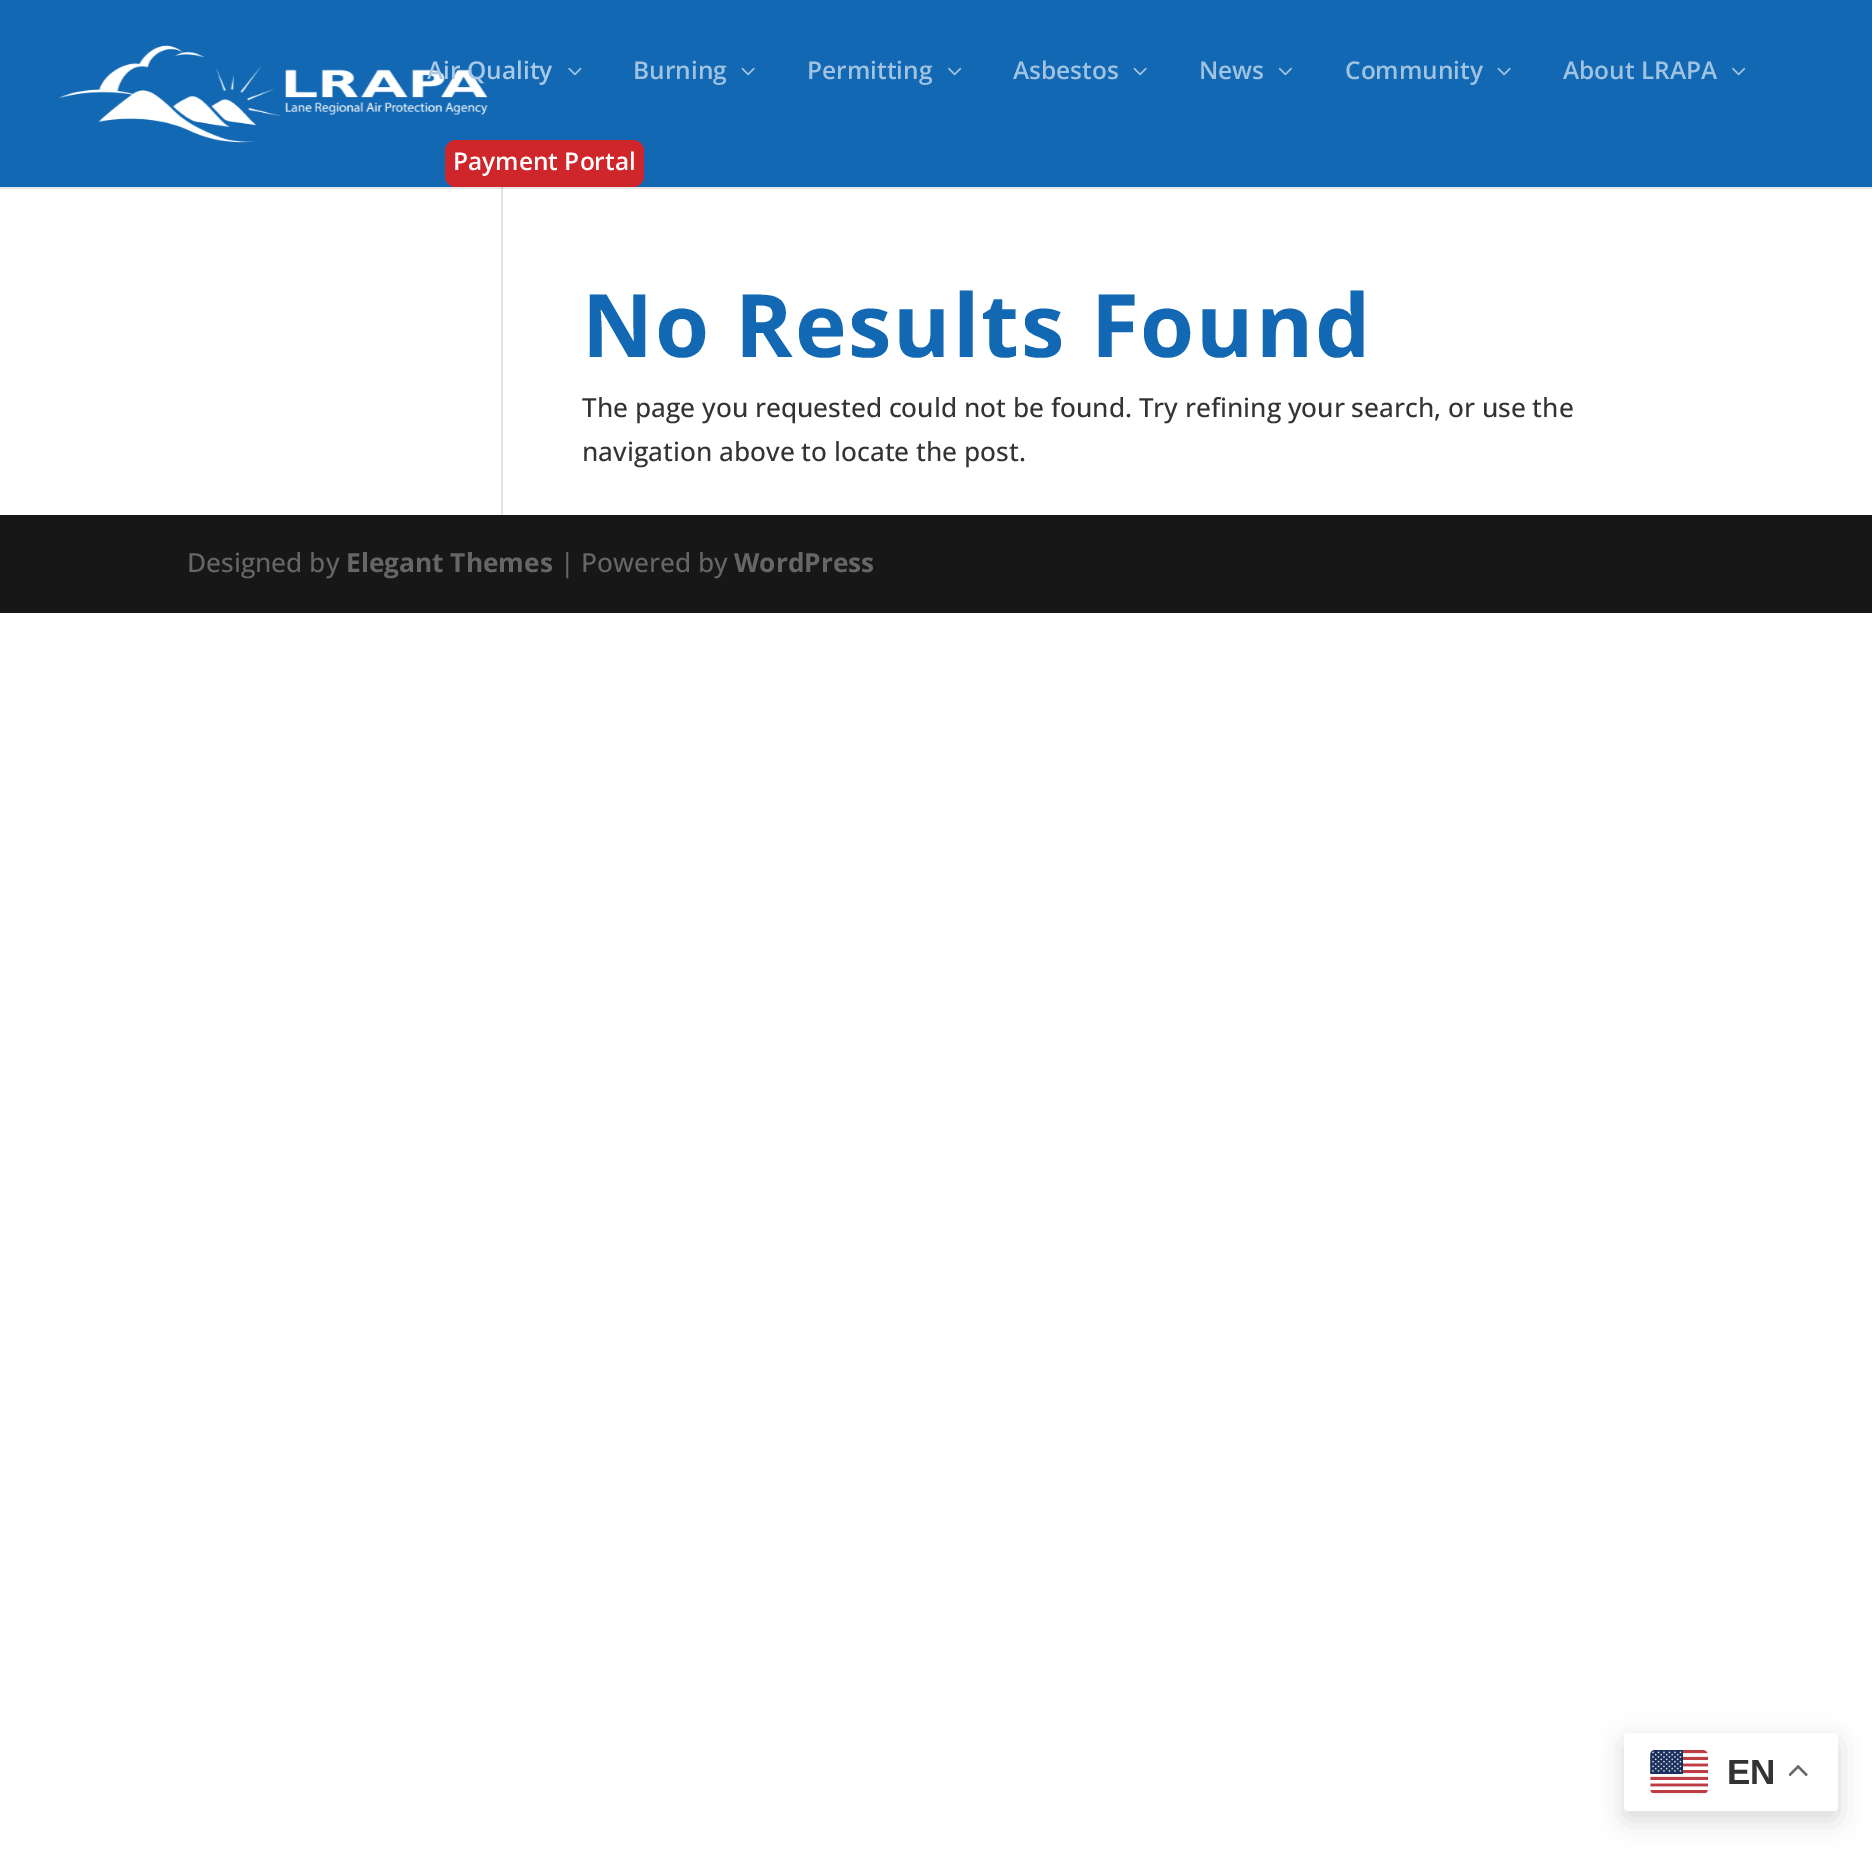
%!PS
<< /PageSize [1872 1857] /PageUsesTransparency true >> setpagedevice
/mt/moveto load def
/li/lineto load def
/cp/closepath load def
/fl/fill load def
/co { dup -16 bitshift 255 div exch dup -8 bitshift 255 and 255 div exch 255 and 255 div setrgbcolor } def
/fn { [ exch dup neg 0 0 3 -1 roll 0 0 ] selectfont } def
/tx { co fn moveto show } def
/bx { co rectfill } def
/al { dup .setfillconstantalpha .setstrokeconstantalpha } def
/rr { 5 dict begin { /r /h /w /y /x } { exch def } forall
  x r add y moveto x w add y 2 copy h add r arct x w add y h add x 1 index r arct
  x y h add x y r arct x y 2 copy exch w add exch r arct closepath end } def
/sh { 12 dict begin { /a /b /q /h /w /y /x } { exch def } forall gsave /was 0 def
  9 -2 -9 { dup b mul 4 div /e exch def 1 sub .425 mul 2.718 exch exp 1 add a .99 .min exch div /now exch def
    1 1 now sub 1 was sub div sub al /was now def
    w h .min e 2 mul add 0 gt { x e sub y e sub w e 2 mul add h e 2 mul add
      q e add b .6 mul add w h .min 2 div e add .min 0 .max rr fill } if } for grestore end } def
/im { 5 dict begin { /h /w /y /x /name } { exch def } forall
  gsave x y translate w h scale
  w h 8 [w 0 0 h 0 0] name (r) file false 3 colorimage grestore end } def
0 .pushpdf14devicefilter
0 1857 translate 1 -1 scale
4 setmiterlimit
0 0 1872 1857 16#FFFFFF bx
501 179 2 336 16#E2E2E2 bx
0.1 al
16#000000 co
0 187 mt 0 189 li 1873 189 li 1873 2 li 1872 2 li 1872 187 li cp fl
1 al
0 0 1872 187 16#1268B3 bx
(media/1.raw) 59 45 429 98 im
(media/2.raw) 568 67 14 9 im
(media/3.raw) 741 67 14 9 im
(media/4.raw) 948 67 14 9 im
(media/3.raw) 1133 67 14 9 im
(media/5.raw) 1278 67 14 9 im
(media/3.raw) 1497 67 14 9 im
(media/4.raw) 1732 67 14 9 im
16#CF262C co
445 140 199 47 11 rr fl
0 515 1872 98 16#171717 bx
16#000000 co
1624 1741 214 79 4 13 .15 sh
16#FFFFFF co
1624 1733 214 78 4 rr fl
(media/6.raw) 1650 1750 58 44 im
(media/7.raw) 1789 1765 19 12 im
(Air Quality) 427 79 /OpenSans-SemiBold 24.5 16#AAC9E4 tx
(Burning) 633 79 /OpenSans-SemiBold 24.5 16#A0C3E1 tx
(Permitting) 807 79 /OpenSans-SemiBold 24.5 16#A0C3E1 tx
(Asbestos) 1013 79 /OpenSans-SemiBold 24.5 16#A0C3E1 tx
(News) 1199 79 /OpenSans-SemiBold 24.5 16#A0C3E1 tx
(Community) 1345 79 /OpenSans-SemiBold 24.5 16#A0C3E1 tx
(About LRAPA) 1563 79 /OpenSans-SemiBold 24.5 16#A0C3E1 tx
(Payment Portal) 453 170 /OpenSans-SemiBold 24.5 16#FFFFFF tx
/OpenSans-Bold 87.5 fn
16#1268B3 co
582 357 mt 1.75 0 (No Results Found) ashow
(The page you requested could not be found. Try refining your search, or use the) 582 417 /OpenSans-Medium 26.25 16#333333 tx
(navigation above to locate the post.) 582 461 /OpenSans-Medium 26.25 16#333333 tx
(Designed by) 187 572 /OpenSans-Medium 26.25 16#666666 tx
(Elegant Themes) 346 572 /OpenSans-Bold 26.25 16#666666 tx
(| Powered by) 560 572 /OpenSans-Medium 26.25 16#666666 tx
(WordPress) 734 572 /OpenSans-Bold 26.25 16#666666 tx
(EN) 1727 1784 /LiberationSans-Bold 35 16#333333 tx
.poppdf14devicefilter showpage
